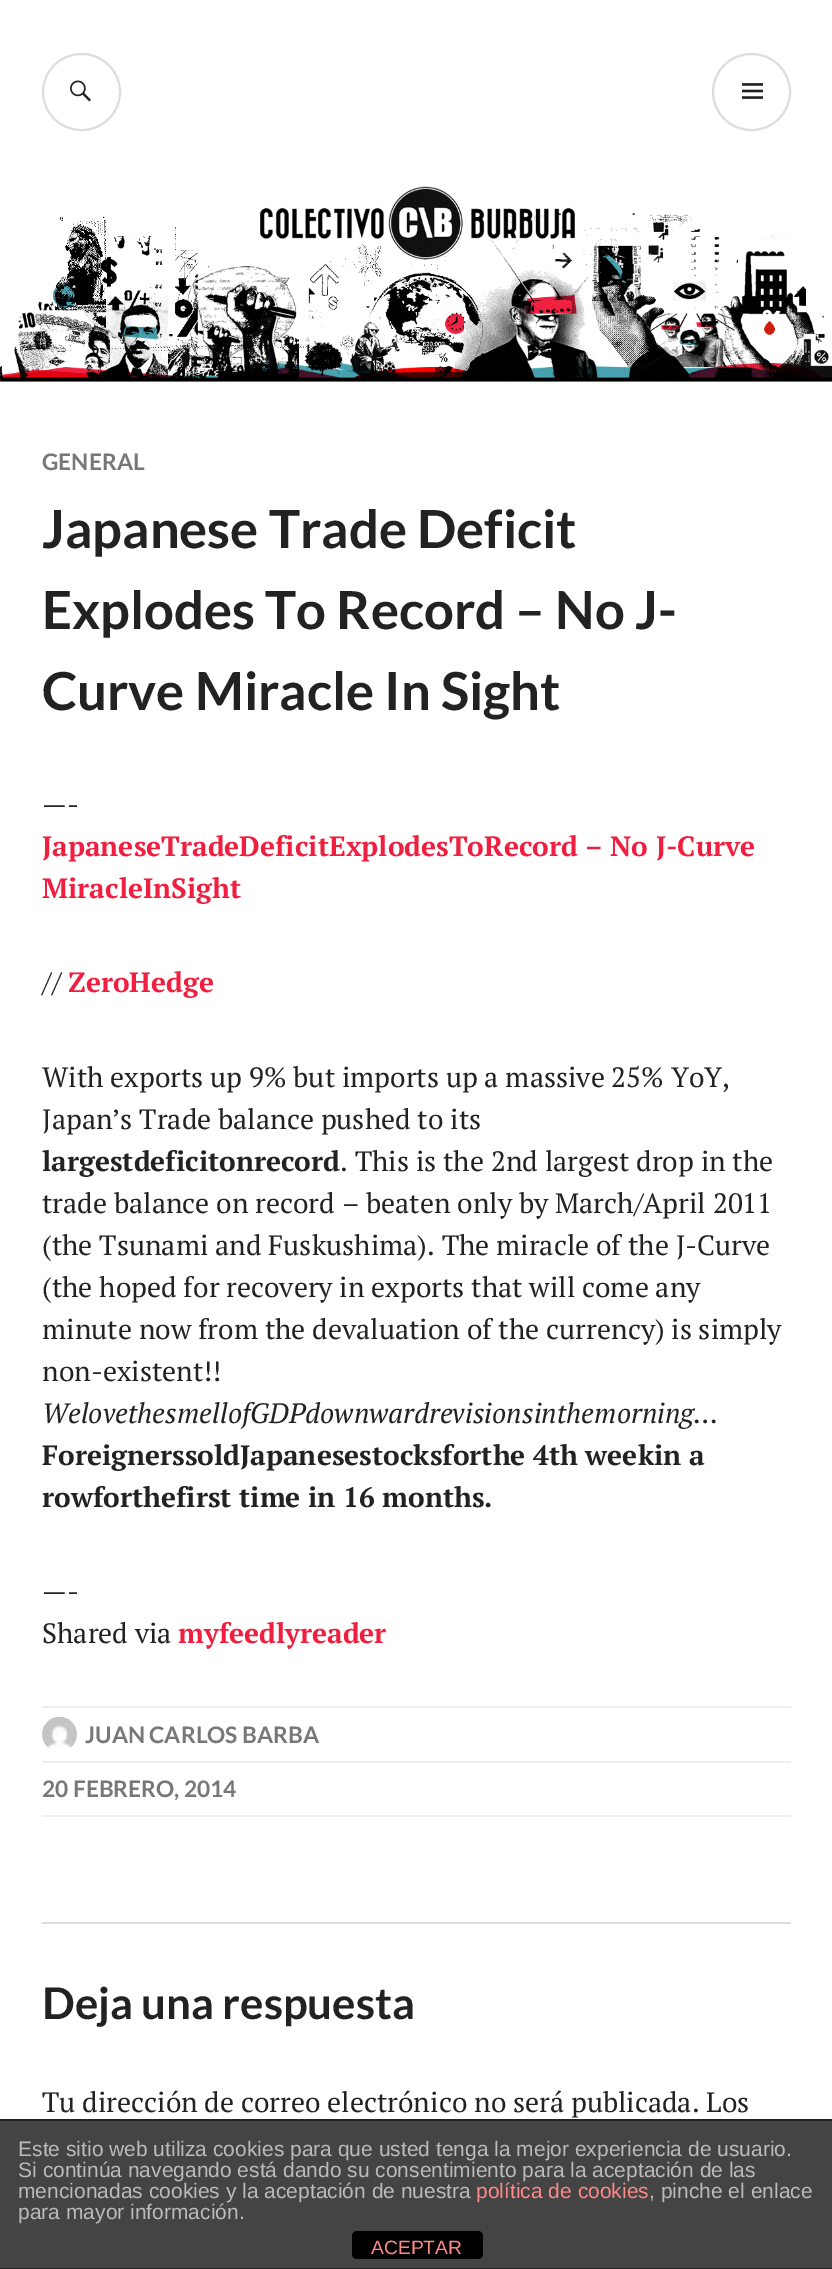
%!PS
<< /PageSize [832 2269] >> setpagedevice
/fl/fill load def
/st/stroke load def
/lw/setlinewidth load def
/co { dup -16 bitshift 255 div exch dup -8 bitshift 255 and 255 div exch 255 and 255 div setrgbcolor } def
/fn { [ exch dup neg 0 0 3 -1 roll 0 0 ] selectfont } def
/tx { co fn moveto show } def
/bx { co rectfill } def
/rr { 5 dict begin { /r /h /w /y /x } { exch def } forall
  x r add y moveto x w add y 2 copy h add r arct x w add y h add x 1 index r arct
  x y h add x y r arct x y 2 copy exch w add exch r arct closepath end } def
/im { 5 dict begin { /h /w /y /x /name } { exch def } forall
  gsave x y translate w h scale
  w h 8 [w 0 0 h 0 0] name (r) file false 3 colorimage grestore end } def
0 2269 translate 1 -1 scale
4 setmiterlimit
0 0 832 2269 16#FFFFFF bx
0 381 832 1 16#DDDDDD bx
2 lw
43 54 77 76 38 rr st
(media/1.raw) 70 80 21 22 im
713 54 77 76 38 rr st
(media/2.raw) 742 83 21 16 im
(media/3.raw) 0 186 832 196 im
42 1706 749 2 16#EEEEEE bx
(media/4.raw) 42 1717 35 31 im
42 1761 749 2 16#EEEEEE bx
42 1815 749 2 16#EEEEEE bx
42 1922 749 2 16#DDDDDD bx
0 2121 832 147 16#444444 bx
0 2119 832 2 16#222222 bx
0 2268 832 1 16#222222 bx
16#000000 co
352 2231 131 28 5 rr fl
(GENERAL) 42 470 /Lato-Bold 22.75 16#777777 tx
(Japanese Trade Deficit) 42 548 /Lato-Bold 52.5 16#222222 tx
(Explodes To Record – No J-) 42 629 /Lato-Bold 52.5 16#222222 tx
(Curve Miracle In Sight) 42 710 /Lato-Bold 52.5 16#222222 tx
(—-) 42 814 /PTSerif-Regular 28 16#222222 tx
(JapaneseTradeDeficitExplodesToRecord – No J-Curve) 42 856 /PTSerif-Bold 28 16#F01F3F tx
(MiracleInSight) 42 898 /PTSerif-Bold 28 16#F01F3F tx
(//) 42 992 /PTSerif-Regular 28 16#222222 tx
(ZeroHedge) 68 992 /PTSerif-Bold 28 16#F01F3F tx
(With exports up 9% but imports up a massive 25% YoY,) 42 1087 /PTSerif-Regular 28 16#222222 tx
(Japan’s Trade balance pushed to its) 42 1129 /PTSerif-Regular 28 16#222222 tx
(largestdeficitonrecord) 42 1171 /PTSerif-Bold 28 16#222222 tx
(. This is the 2nd largest drop in the) 340 1171 /PTSerif-Regular 28 16#222222 tx
(trade balance on record – beaten only by March/April 2011) 42 1213 /PTSerif-Regular 28 16#222222 tx
(\(the Tsunami and Fuskushima\). The miracle of the J-Curve) 42 1255 /PTSerif-Regular 28 16#222222 tx
(\(the hoped for recovery in exports that will come any) 42 1297 /PTSerif-Regular 28 16#222222 tx
(minute now from the devaluation of the currency\) is simply) 42 1339 /PTSerif-Regular 28 16#222222 tx
(non-existent!!) 42 1381 /PTSerif-Regular 28 16#222222 tx
(WelovethesmellofGDPdownwardrevisionsinthemorning…) 42 1423 /PTSerif-Italic 28 16#222222 tx
(ForeignerssoldJapanesestocksforthe 4th weekin a) 42 1465 /PTSerif-Bold 28 16#222222 tx
(rowforthefirst time in 16 months.) 42 1507 /PTSerif-Bold 28 16#222222 tx
(—-) 42 1601 /PTSerif-Regular 28 16#222222 tx
(Shared via) 42 1643 /PTSerif-Regular 28 16#222222 tx
(myfeedlyreader) 178 1643 /PTSerif-Bold 28 16#F01F3F tx
(JUAN CARLOS BARBA) 85 1743 /Lato-Bold 22.75 16#777777 tx
(20 FEBRERO, 2014) 42 1797 /Lato-Bold 22.75 16#777777 tx
(Deja una respuesta) 42 2019 /Lato-Bold 43.75 16#222222 tx
(Tu dirección de correo electrónico no será publicada. Los) 42 2112 /PTSerif-Regular 28 16#222222 tx
(Este sitio web utiliza cookies para que usted tenga la mejor experiencia de usuario.) 18 2156 /LiberationSans-Regular 21 16#BBBBBB tx
(Si continúa navegando está dando su consentimiento para la aceptación de las) 18 2177 /LiberationSans-Regular 21 16#BBBBBB tx
(mencionadas cookies y la aceptación de nuestra) 18 2198 /LiberationSans-Regular 21 16#BBBBBB tx
(política de cookies) 476 2198 /LiberationSans-Regular 21 16#FF8888 tx
(, pinche el enlace) 649 2198 /LiberationSans-Regular 21 16#BBBBBB tx
(para mayor información.) 18 2219 /LiberationSans-Regular 21 16#BBBBBB tx
(ACEPTAR) 371 2254 /LiberationSans-Regular 19.25 16#FF8888 tx
showpage
